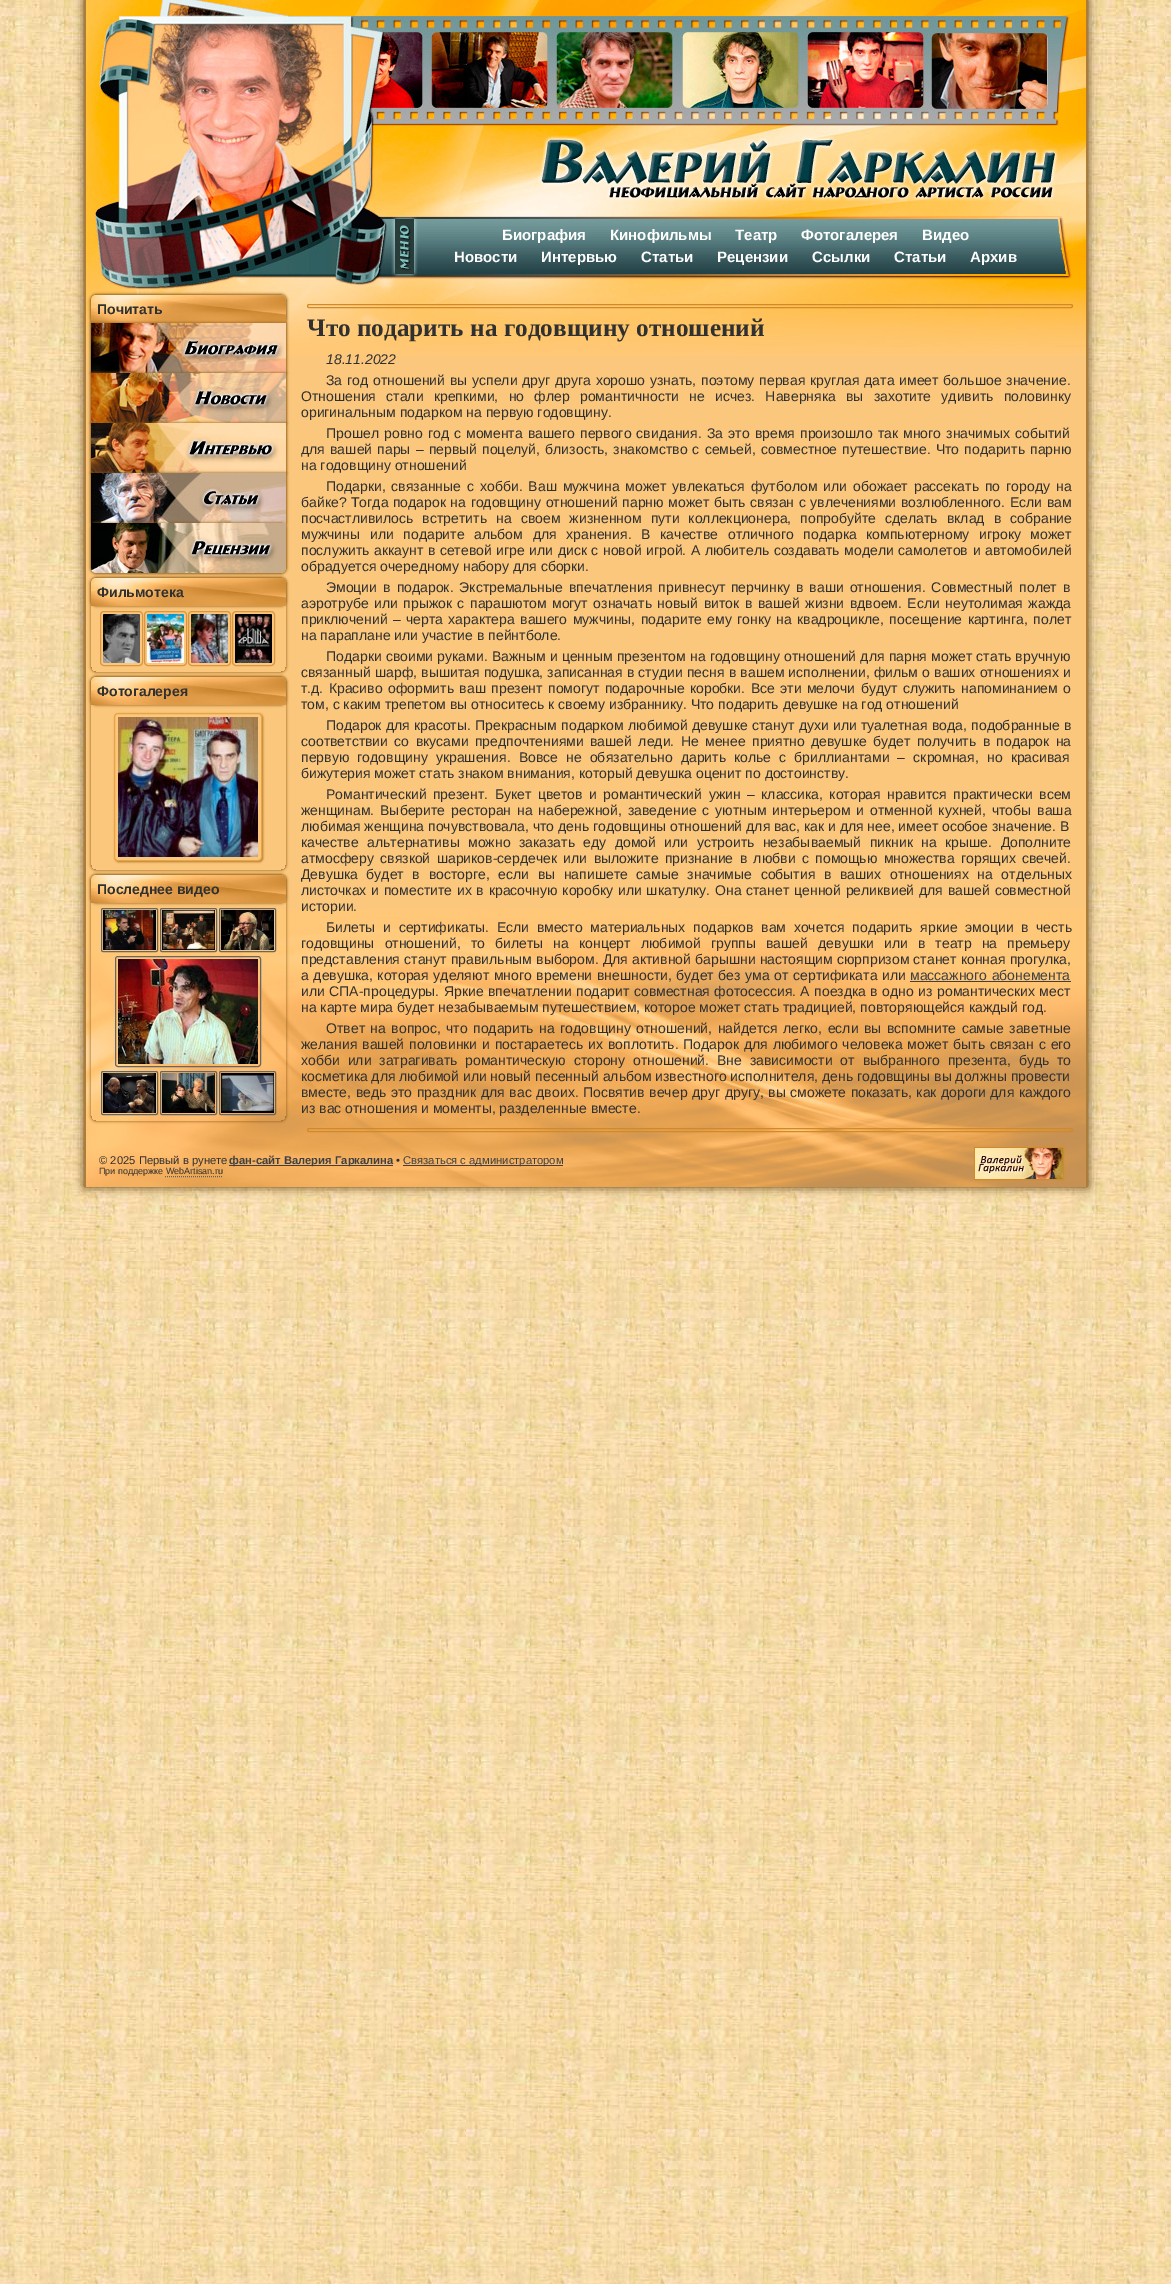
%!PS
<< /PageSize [1171 2284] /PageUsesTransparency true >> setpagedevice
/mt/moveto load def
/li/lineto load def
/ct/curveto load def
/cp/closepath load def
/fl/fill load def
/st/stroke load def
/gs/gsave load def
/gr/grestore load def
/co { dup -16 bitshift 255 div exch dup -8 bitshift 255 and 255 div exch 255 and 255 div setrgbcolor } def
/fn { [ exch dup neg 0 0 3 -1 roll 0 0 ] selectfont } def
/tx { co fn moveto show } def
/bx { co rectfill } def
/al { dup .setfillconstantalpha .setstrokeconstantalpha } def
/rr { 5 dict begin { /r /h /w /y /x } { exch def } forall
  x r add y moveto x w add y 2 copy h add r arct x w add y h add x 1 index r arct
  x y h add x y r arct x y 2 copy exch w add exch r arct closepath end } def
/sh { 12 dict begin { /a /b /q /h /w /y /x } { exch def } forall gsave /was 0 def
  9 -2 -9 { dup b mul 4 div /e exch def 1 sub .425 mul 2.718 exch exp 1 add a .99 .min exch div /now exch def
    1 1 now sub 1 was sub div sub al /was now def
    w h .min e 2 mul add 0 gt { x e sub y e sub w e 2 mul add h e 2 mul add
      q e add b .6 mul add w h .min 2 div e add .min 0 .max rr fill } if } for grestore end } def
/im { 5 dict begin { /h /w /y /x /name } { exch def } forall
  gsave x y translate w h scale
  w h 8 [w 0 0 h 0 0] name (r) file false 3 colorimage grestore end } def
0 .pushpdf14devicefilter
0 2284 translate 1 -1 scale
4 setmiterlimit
0 0 1171 2284 16#FFFFFF bx
(media/1.raw) 0 0 1171 2284 im
16#5B3A0B co
84 0 1004 1187 0 5 1 sh
86 356 1000 553 16#FBC77C bx
(media/2.raw) 86 909 1000 278 im
1086 0 2 1187 16#AA7D3D bx
84 0 2 1187 16#AA7D3D bx
(media/3.raw) 86 0 1000 356 im
16#8C5913 co
91 295 195 278 5 1.5 1 sh
91 295 195 28 5 1.5 1 sh
(media/4.raw) 91 295 195 28 im
91 323 195 50 0 1.5 1 sh
(media/5.raw) 91 323 195 50 im
91 373 195 50 0 1.5 1 sh
(media/6.raw) 91 373 195 50 im
91 423 195 50 0 1.5 1 sh
(media/7.raw) 91 423 195 50 im
91 473 195 50 0 1.5 1 sh
(media/8.raw) 91 473 195 50 im
gs
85 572 mt 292 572 li 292 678 li 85 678 li cp 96 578 mt 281 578 li 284 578 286 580 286 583 ct 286 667 li 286 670 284 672 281 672 ct 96 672 li 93 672 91 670 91 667 ct 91 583 li 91 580 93 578 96 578 ct cp eoclip newpath
91 578 195 94 5 1.5 1 sh
gr
91 578 195 28 5 1.5 1 sh
(media/10.raw) 91 578 195 28 im
91 523 195 50 5 1.5 1 sh
(media/9.raw) 91 523 195 50 im
16#D99542 co
100.5 611.5 42 54 3.5 rr st
(media/11.raw) 103 614 37 49 im
144.5 611.5 42 54 3.5 rr st
(media/12.raw) 147 614 37 49 im
188.5 611.5 42 54 3.5 rr st
(media/13.raw) 191 614 37 49 im
232.5 611.5 42 54 3.5 rr st
(media/14.raw) 235 614 37 49 im
gs
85 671 mt 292 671 li 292 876 li 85 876 li cp 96 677 mt 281 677 li 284 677 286 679 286 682 ct 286 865 li 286 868 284 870 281 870 ct 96 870 li 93 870 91 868 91 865 ct 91 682 li 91 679 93 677 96 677 ct cp eoclip newpath
16#8C5913 co
91 677 195 193 5 1.5 1 sh
gr
16#8C5913 co
91 677 195 28 5 1.5 1 sh
(media/10.raw) 91 677 195 28 im
16#AA7120 co
115 714 148 148 4 1 1 sh
16#FBC77C co
114.5 713.5 147 147 3.5 rr gs fl gr
16#E8A343 co
st
(media/15.raw) 118 717 140 140 im
gs
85 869 mt 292 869 li 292 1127 li 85 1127 li cp 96 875 mt 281 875 li 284 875 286 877 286 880 ct 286 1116 li 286 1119 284 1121 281 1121 ct 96 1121 li 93 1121 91 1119 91 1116 ct 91 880 li 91 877 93 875 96 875 ct cp eoclip newpath
16#8C5913 co
91 875 195 246 5 1.5 1 sh
gr
16#8C5913 co
91 875 195 28 5 1.5 1 sh
(media/10.raw) 91 875 195 28 im
16#666666 co
101.5 908.5 56 43 1.5 rr st
(media/16.raw) 103 910 53 40 im
160.5 908.5 56 43 1.5 rr st
(media/17.raw) 162 910 53 40 im
219.5 908.5 56 43 1.5 rr st
(media/18.raw) 221 910 53 40 im
115.5 956.5 145 110 2.5 rr st
(media/19.raw) 118 959 140 105 im
101.5 1071.5 56 43 1.5 rr st
(media/20.raw) 103 1073 53 40 im
160.5 1071.5 56 43 1.5 rr st
(media/21.raw) 162 1073 53 40 im
219.5 1071.5 56 43 1.5 rr st
(media/22.raw) 221 1073 53 40 im
16#D18A27 co
307.5 304.5 765 3 1.5 rr st
910 981 161 1 16#404040 bx
16#D18A27 co
307.5 1128.5 765 3 1.5 rr st
229 1165 164 1 16#404040 bx
403 1165 160 1 16#404040 bx
16#606060 co
[1 1] 0 setdash
165 1176.5 mt 222 1176.5 li st
16#D18A27 co
[] 0 setdash
974.5 1147.5 89 32 .5 rr st
(media/23.raw) 975 1148 88 31 im
(Биография) 502 240 /LiberationSans-Bold 15 16#FFFFFF tx
(Кинофильмы) 610 240 /LiberationSans-Bold 15 16#FFFFFF tx
(Театр) 735 240 /LiberationSans-Bold 15 16#FFFFFF tx
(Фотогалерея) 801 240 /LiberationSans-Bold 15 16#FFFFFF tx
(Видео) 922 240 /LiberationSans-Bold 15 16#FFFFFF tx
(Новости) 454 262 /LiberationSans-Bold 15 16#FFFFFF tx
(Интервью) 541 262 /LiberationSans-Bold 15 16#FFFFFF tx
(Статьи) 641 262 /LiberationSans-Bold 15 16#FFFFFF tx
(Рецензии) 717 262 /LiberationSans-Bold 15 16#FFFFFF tx
(Ссылки) 812 262 /LiberationSans-Bold 15 16#FFFFFF tx
(Статьи) 894 262 /LiberationSans-Bold 15 16#FFFFFF tx
(Архив) 970 262 /LiberationSans-Bold 15 16#FFFFFF tx
(Почитать) 97 314 /LiberationSans-Bold 14 16#303030 tx
(Фильмотека) 97 597 /LiberationSans-Bold 14 16#303030 tx
(Фотогалерея) 97 696 /LiberationSans-Bold 14 16#303030 tx
(Последнее видео) 97 894 /LiberationSans-Bold 14 16#303030 tx
(Что подарить на годовщину отношений) 307 336 /LiberationSerif-Bold 25.25 16#303030 tx
(18.11.2022) 326 364 /LiberationSans-Italic 14 16#303030 tx
/LiberationSans-Regular 14 fn
326 385 mt .9 0 32 (За год отношений вы успели друг друга хорошо узнать, поэтому первая круглая дата имеет большое значение.) widthshow
301 401 mt 6.4 0 32 (Отношения стали крепкими, но флер романтичности не исчез. Наверняка вы захотите удивить половинку) widthshow
(оригинальным подарком на первую годовщину.) 301 417 /LiberationSans-Regular 14 16#303030 tx
326 438 mt 1.25 0 32 (Прошел ровно год с момента вашего первого свидания. За это время произошло так много значимых событий) widthshow
301 454 mt 1.25 0 32 (для вашей пары – первый поцелуй, близость, знакомство с семьей, совместное путешествие. Что подарить парню) widthshow
(на годовщину отношений) 301 470 /LiberationSans-Regular 14 16#303030 tx
326 491 mt 2.1 0 32 (Подарки, связанные с хобби. Ваш мужчина может увлекаться футболом или обожает рассекать по городу на) widthshow
301 507 mt .7 0 32 (байке? Тогда подарок на годовщину отношений парню может быть связан с увлечениями возлюбленного. Если вам) widthshow
301 523 mt 5.25 0 32 (посчастливилось встретить на своем жизненном пути коллекционера, попробуйте сделать вклад в собрание) widthshow
301 539 mt 5.9 0 32 (мужчины или подарите альбом для хранения. В качестве отличного подарка компьютерному игроку может) widthshow
301 555 mt .7 0 32 (послужить аккаунт в сетевой игре или диск с новой игрой. А любитель создавать модели самолетов и автомобилей) widthshow
(обрадуется очередному набору для сборки.) 301 571 /LiberationSans-Regular 14 16#303030 tx
326 592 mt 2.1 0 32 (Эмоции в подарок. Экстремальные впечатления привнесут перчинку в ваши отношения. Совместный полет в) widthshow
301 608 mt 1.6 0 32 (аэротрубе или прыжок с парашютом могут означать новый виток в вашей жизни вдвоем. Если неутолимая жажда) widthshow
301 624 mt 1.5 0 32 (приключений – черта характера вашего мужчины, подарите ему гонку на квадроцикле, посещение картинга, полет) widthshow
(на параплане или участие в пейнтболе.) 301 640 /LiberationSans-Regular 14 16#303030 tx
326 661 mt .3 0 32 (Подарки своими руками. Важным и ценным презентом на годовщину отношений для парня может стать вручную) widthshow
301 677 mt .3 0 32 (связанный шарф, вышитая подушка, записанная в студии песня в вашем исполнении, фильм о ваших отношениях и) widthshow
301 693 mt 1.5 0 32 (т.д. Красиво оформить ваш презент помогут подарочные коробки. Все эти мелочи будут служить напоминанием о) widthshow
(том, с каким трепетом вы относитесь к своему избраннику. Что подарить девушке на год отношений) 301 709 /LiberationSans-Regular 14 16#303030 tx
326 730 mt .4 0 32 (Подарок для красоты. Прекрасным подарком любимой девушке станут духи или туалетная вода, подобранные в) widthshow
301 746 mt 2.5 0 32 (соответствии со вкусами предпочтениями вашей леди. Не менее приятно девушке будет получить в подарок на) widthshow
301 762 mt 4.25 0 32 (первую годовщину украшения. Вовсе не обязательно дарить колье с бриллиантами – скромная, но красивая) widthshow
(бижутерия может стать знаком внимания, который девушка оценит по достоинству.) 301 778 /LiberationSans-Regular 14 16#303030 tx
326 799 mt 2.6 0 32 (Романтический презент. Букет цветов и романтический ужин – классика, которая нравится практически всем) widthshow
301 815 mt 2 0 32 (женщинам. Выберите ресторан на набережной, заведение с уютным интерьером и отменной кухней, чтобы ваша) widthshow
(любимая женщина почувствовала, что день годовщины отношений для вас, как и для нее, имеет особое значение. В) 301 831 /LiberationSans-Regular 14 16#303030 tx
301 847 mt 4.6 0 32 (качестве альтернативы можно заказать еду домой или устроить незабываемый пикник на крыше. Дополните) widthshow
301 863 mt 2.5 0 32 (атмосферу связкой шариков-сердечек или выложите признание в любви с помощью множества горящих свечей.) widthshow
301 879 mt 4.75 0 32 (Девушка будет в восторге, если вы напишете самые значимые события в ваших отношениях на отдельных) widthshow
301 895 mt .9 0 32 (листочках и поместите их в красочную коробку или шкатулку. Она станет ценной реликвией для вашей совместной) widthshow
(истории.) 301 911 /LiberationSans-Regular 14 16#303030 tx
326 932 mt 3.75 0 32 (Билеты и сертификаты. Если вместо материальных подарков вам хочется подарить яркие эмоции в честь) widthshow
301 948 mt 6.25 0 32 (годовщины отношений, то билеты на концерт любимой группы вашей девушки или в театр на премьеру) widthshow
301 964 mt .25 0 32 (представления станут правильным выбором. Для активной барышни настоящим сюрпризом станет конная прогулка,) widthshow
301 980 mt .75 0 32 (а девушка, которая уделяют много времени внешности, будет без ума от сертификата или) widthshow
16#404040 co
910 980 mt .75 0 32 (массажного абонемента) widthshow
16#303030 co
301 996 mt .6 0 32 (или СПА-процедуры. Яркие впечатлении подарит совместная фотосессия. А поездка в одно из романтических мест) widthshow
(на карте мира будет незабываемым путешествием, которое может стать традицией, повторяющейся каждый год.) 301 1012 /LiberationSans-Regular 14 16#303030 tx
326 1033 mt 1.6 0 32 (Ответ на вопрос, что подарить на годовщину отношений, найдется легко, если вы вспомните самые заветные) widthshow
301 1049 mt 1 0 32 (желания вашей половинки и постараетесь их воплотить. Подарок для любимого человека может быть связан с его) widthshow
301 1065 mt 4 0 32 (хобби или затрагивать романтическую сторону отношений. Вне зависимости от выбранного презента, будь то) widthshow
(косметика для любимой или новый песенный альбом известного исполнителя, день годовщины вы должны провести) 301 1081 /LiberationSans-Regular 14 16#303030 tx
301 1097 mt .75 0 32 (вместе, ведь это праздник для вас двоих. Посвятив вечер друг другу, вы сможете показать, как дороги для каждого) widthshow
(из вас отношения и моменты, разделенные вместе.) 301 1113 /LiberationSans-Regular 14 16#303030 tx
(© 2025 Первый в рунете) 99 1164 /LiberationSans-Regular 11.25 16#303030 tx
(фан-сайт Валерия Гаркалина) 229 1164 /LiberationSans-Bold 11.25 16#404040 tx
(•) 396 1164 /LiberationSans-Regular 11.25 16#303030 tx
(Связаться с администратором) 403 1164 /LiberationSans-Regular 11.25 16#404040 tx
(При поддержке WebArtisan.ru) 99 1174 /LiberationSans-Regular 9 16#303030 tx
.poppdf14devicefilter showpage
